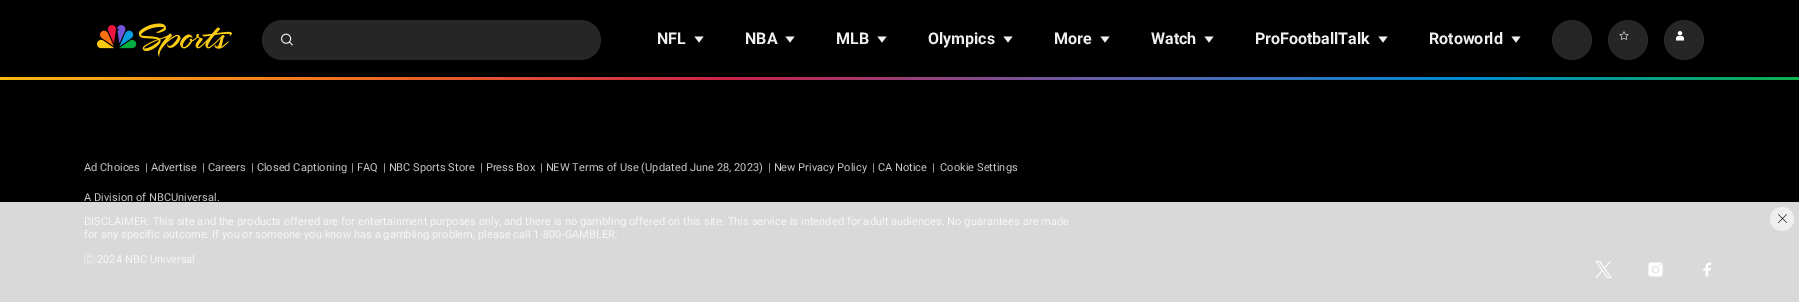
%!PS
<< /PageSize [1799 302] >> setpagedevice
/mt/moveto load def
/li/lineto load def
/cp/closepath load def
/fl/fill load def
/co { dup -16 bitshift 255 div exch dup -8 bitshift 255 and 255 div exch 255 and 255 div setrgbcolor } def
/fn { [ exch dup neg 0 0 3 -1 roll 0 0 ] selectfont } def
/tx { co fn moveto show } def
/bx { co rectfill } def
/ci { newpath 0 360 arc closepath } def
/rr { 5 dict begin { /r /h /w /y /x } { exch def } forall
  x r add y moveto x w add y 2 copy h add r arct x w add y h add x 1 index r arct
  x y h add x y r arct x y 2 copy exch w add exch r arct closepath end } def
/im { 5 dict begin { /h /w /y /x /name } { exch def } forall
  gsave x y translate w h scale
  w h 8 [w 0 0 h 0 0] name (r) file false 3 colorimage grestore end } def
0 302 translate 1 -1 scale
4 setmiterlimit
0 0 1799 302 16#000000 bx
(media/1.raw) 97 23 135 34 im
16#262626 co
262 20 339 40 20 rr fl
(media/2.raw) 281 33 12 13 im
16#F0F0F0 co
699 42.5 mt 694.5 36.5 li 703.5 36.5 li cp fl
790 42.5 mt 785.5 36.5 li 794.5 36.5 li cp fl
882 42.5 mt 877.5 36.5 li 886.5 36.5 li cp fl
1008 42.5 mt 1003.5 36.5 li 1012.5 36.5 li cp fl
1105 42.5 mt 1100.5 36.5 li 1109.5 36.5 li cp fl
1209 42.5 mt 1204.5 36.5 li 1213.5 36.5 li cp fl
1383 42.5 mt 1378.5 36.5 li 1387.5 36.5 li cp fl
1516 42.5 mt 1511.5 36.5 li 1520.5 36.5 li cp fl
16#262626 co
1572 40 20 ci fl
1628 40 20 ci fl
(media/3.raw) 1619 31 10 9 im
1684 40 20 ci fl
(media/4.raw) 1676 31 8 10 im
(media/5.raw) 0 77 1799 3 im
0 202 1799 100 16#D9D9D9 bx
(media/6.raw) 1595 261 17 17 im
(media/7.raw) 1648 262 15 15 im
(media/8.raw) 1703 262 9 15 im
16#EFEFEF co
1782 219 12 ci fl
(media/9.raw) 1778 214 9 9 im
(NFL) 657 44 /Roboto-Bold 16 16#F0F0F0 tx
(NBA) 745 44 /Roboto-Bold 16 16#F0F0F0 tx
(MLB) 836 44 /Roboto-Bold 16 16#F0F0F0 tx
(Olympics) 928 44 /Roboto-Bold 16 16#F0F0F0 tx
(More) 1054 44 /Roboto-Bold 16 16#F0F0F0 tx
(Watch) 1151 44 /Roboto-Bold 16 16#F0F0F0 tx
(ProFootballTalk) 1255 44 /Roboto-Bold 16 16#F0F0F0 tx
(Rotoworld) 1429 44 /Roboto-Bold 16 16#F0F0F0 tx
/Roboto-Regular 11 fn
16#C9C9C9 co
84 171 mt .06 0 (Ad Choices) ashow
145 171 mt .06 0 (| Advertise) ashow
202 171 mt .06 0 (| Careers) ashow
251 171 mt .06 0 (| Closed Captioning) ashow
351 171 mt .06 0 (| FAQ) ashow
383 171 mt .06 0 (| NBC Sports Store) ashow
480 171 mt .06 0 (| Press Box) ashow
540 171 mt .06 0 (| NEW Terms of Use \(Updated June 28, 2023\)) ashow
768 171 mt .06 0 (| New Privacy Policy) ashow
872 171 mt .06 0 (| CA Notice) ashow
932 171 mt .06 0 (|) ashow
940 171 mt .06 0 (Cookie Settings) ashow
84 201 mt .06 0 (A Division of NBCUniversal.) ashow
16#F7F7F7 co
84 225 mt .06 0 (DISCLAIMER: This site and the products offered are for entertainment purposes only, and there is no gambling offered on this site. This service is intended for adult audiences. No guarantees are made) ashow
84 238 mt .06 0 (for any specific outcome. If you or someone you know has a gambling problem, please call 1-800-GAMBLER.) ashow
/WenQuanYiZenHei-Medium 11 fn
84 263 mt .06 0 (Ⓒ) ashow
/Roboto-Regular 11 fn
97 263 mt .06 0 (2024 NBC Universal) ashow
showpage
